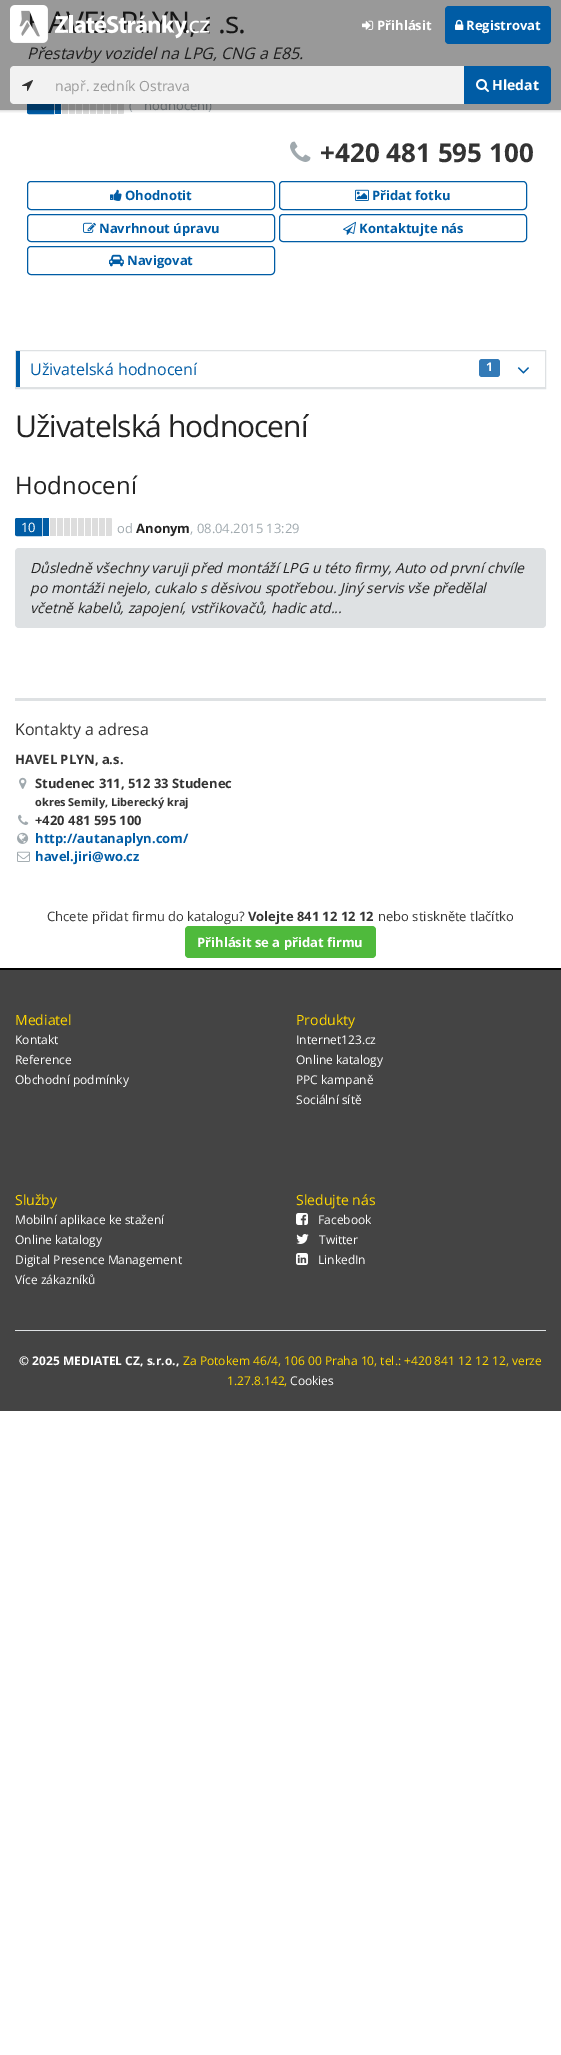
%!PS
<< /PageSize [561 2055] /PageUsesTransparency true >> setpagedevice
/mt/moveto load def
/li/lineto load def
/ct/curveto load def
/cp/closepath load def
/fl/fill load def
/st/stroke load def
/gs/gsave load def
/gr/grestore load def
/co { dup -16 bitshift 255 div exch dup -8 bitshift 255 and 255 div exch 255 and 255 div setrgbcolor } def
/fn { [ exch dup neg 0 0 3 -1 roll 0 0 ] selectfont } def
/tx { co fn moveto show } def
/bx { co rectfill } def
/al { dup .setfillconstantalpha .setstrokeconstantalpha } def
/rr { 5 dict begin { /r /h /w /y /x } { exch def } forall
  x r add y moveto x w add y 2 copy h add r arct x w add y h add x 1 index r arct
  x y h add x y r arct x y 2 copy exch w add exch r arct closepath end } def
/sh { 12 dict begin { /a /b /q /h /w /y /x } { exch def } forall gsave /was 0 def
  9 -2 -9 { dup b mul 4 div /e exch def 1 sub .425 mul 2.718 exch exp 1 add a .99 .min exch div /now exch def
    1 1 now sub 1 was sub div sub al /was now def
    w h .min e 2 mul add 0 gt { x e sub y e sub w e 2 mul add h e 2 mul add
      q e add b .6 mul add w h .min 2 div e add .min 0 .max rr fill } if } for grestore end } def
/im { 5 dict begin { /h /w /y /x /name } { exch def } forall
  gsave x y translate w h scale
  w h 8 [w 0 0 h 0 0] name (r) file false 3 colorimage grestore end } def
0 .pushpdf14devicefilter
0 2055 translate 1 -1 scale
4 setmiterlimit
0 0 561 2055 16#FFFFFF bx
16#005CA5 co
29 96.5 mt 53.5 96.5 li 53.5 113.5 li 29 113.5 li 28 113.5 27.5 113 27.5 112 ct 27.5 98 li 27.5 97 28 96.5 29 96.5 ct cp gs fl gr
st
(media/1.raw) 62 104 62 10 im
55 96 6 18 16#005CA5 bx
(media/2.raw) 290 141 21 21 im
27.5 181.5 247 28 3.5 rr st
(media/3.raw) 110 189 12 12 im
279.5 181.5 247 28 3.5 rr st
(media/4.raw) 355 189 14 12 im
27.5 214.5 247 27 3.5 rr st
(media/5.raw) 83 222 13 11 im
279.5 214.5 247 27 3.5 rr st
(media/6.raw) 343 221 13 14 im
27.5 246.5 247 28 3.5 rr st
(media/7.raw) 109 254 15 13 im
16#DEE1E3 co
15.5 350.5 530 38 rectstroke
16 387 529 1 16#DEE1E3 bx
16 351 4 36 16#005CA5 bx
16#337AB7 co
479 359 21 18 3 rr fl
(media/8.raw) 517 367 12 7 im
16#005CA5 co
17 518.5 mt 41.5 518.5 li 41.5 535.5 li 17 535.5 li 16 535.5 15.5 535 15.5 534 ct 15.5 520 li 15.5 519 16 518.5 17 518.5 ct cp gs fl gr
st
(media/9.raw) 50 518 62 18 im
43 518 6 18 16#005CA5 bx
16#DEE1E3 co
15 548 531 80 4 rr fl
15 698 531 3 16#DEE1E3 bx
(media/10.raw) 19 777 8 12 im
(media/11.raw) 18 814 11 11 im
(media/12.raw) 17 832 12 12 im
(media/13.raw) 17 851 13 11 im
gs
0 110 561 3 rectclip
16#000000 co
0 0 561 110 0 2 .3 sh
gr
16#4FBA3C co
185 926 191 32 4 rr fl
0 970 561 441 16#444444 bx
0 968 561 2 16#000000 bx
(media/19.raw) 296 1213 12 12 im
(media/20.raw) 296 1234 13 10 im
(media/21.raw) 296 1253 12 12 im
15 1330 531 1 16#DEE1E3 bx
/OpenSans-Regular 30 fn
16#232323 co
218 33 mt -1 0 (.s.) ashow
(Přestavby vozidel na LPG, CNG a E85.) 27 59 /OpenSans-Italic 16 16#333333 tx
(\() 129 110 /OpenSans-Regular 13 16#A0A9AE tx
(hodnocení\)) 144 110 /OpenSans-Regular 13 16#A0A9AE tx
(+420 481 595 100) 320 162 /OpenSans-Bold 26 16#333333 tx
(Ohodnotit) 125 200 /OpenSans-Bold 13 16#005CA5 tx
(Přidat fotku) 372 200 /OpenSans-Bold 13 16#005CA5 tx
(Navrhnout úpravu) 99 233 /OpenSans-Bold 13 16#005CA5 tx
(Kontaktujte nás) 359 233 /OpenSans-Bold 13 16#005CA5 tx
(Navigovat) 127 265 /OpenSans-Bold 13 16#005CA5 tx
(Uživatelská hodnocení) 30 375 /OpenSans-Regular 16 16#005CA5 tx
(1) 486 371 /OpenSans-Bold 12 16#FFFFFF tx
/OpenSans-Regular 30 fn
16#232323 co
15 437 mt -1 0 (Uživatelská hodnocení) ashow
(Hodnocení) 15 494 /OpenSans-Regular 24 16#232323 tx
(10) 21 532 /OpenSans-Regular 13 16#FFFFFF tx
(od) 117 533 /OpenSans-Regular 13 16#A0A9AE tx
(Anonym) 136 533 /OpenSans-Bold 13 16#232323 tx
(, 08.04.2015 13:29) 190 533 /OpenSans-Regular 13 16#A0A9AE tx
(Důsledně všechny varuji před montáží LPG u této firmy, Auto od první chvíle) 30 573 /OpenSans-Italic 14 16#232323 tx
(po montáži nejelo, cukalo s děsivou spotřebou. Jiný servis vše předělal) 30 593 /OpenSans-Italic 14 16#232323 tx
(včetně kabelů, zapojení, vstřikovačů, hadic atd...) 30 613 /OpenSans-Italic 14 16#232323 tx
(Kontakty a adresa) 15 735 /OpenSans-Regular 16 16#333333 tx
(HAVEL PLYN, a.s.) 15 764 /OpenSans-Bold 13 16#333333 tx
(Studenec 311, 512 33 Studenec) 35 788 /OpenSans-Bold 13 16#333333 tx
(okres Semily, Liberecký kraj) 35 806 /OpenSans-Bold 11 16#333333 tx
(+420 481 595 100) 35 825 /OpenSans-Bold 13 16#333333 tx
(http://autanaplyn.com/) 35 843 /OpenSans-Bold 13 16#005CA5 tx
(havel.jiri@wo.cz) 35 861 /OpenSans-Bold 13 16#005CA5 tx
0.4 al
0 0 561 110 16#000000 bx
1 al
(media/14.raw) 10 5 200 38 im
(media/15.raw) 362 20 12 10 im
(Přihlásit) 377 30 /OpenSans-Bold 13 16#FFFFFF tx
16#005CA5 co
445 6 106 38 4 rr fl
(media/16.raw) 455 19 9 11 im
(Registrovat) 466 30 /OpenSans-Bold 13 16#FFFFFF tx
16#F2F2F2 co
14 66 mt 45 66 li 45 104 li 14 104 li 12 104 10 102 10 100 ct 10 70 li 10 68 12 66 14 66 ct cp fl
(media/17.raw) 22 80 11 11 im
45 66 419 38 16#F2F2F2 bx
(např. zedník Ostrava) 55 91 /OpenSans-Regular 14 16#999999 tx
16#005CA5 co
464 66 mt 547 66 li 549 66 551 68 551 70 ct 551 100 li 551 102 549 104 547 104 ct 464 104 li cp fl
(media/18.raw) 476 79 13 13 im
(Hledat) 492 90 /OpenSans-Bold 14 16#FFFFFF tx
(Chcete přidat firmu do katalogu?) 47 921 /OpenSans-Regular 13 16#333333 tx
(Volejte 841 12 12 12) 248 921 /OpenSans-Bold 13 16#333333 tx
(nebo stiskněte tlačítko) 378 921 /OpenSans-Regular 13 16#333333 tx
(Přihlásit se a přidat firmu) 197 947 /OpenSans-Bold 13 16#FFFFFF tx
(Mediatel) 15 1025 /OpenSans-Regular 14 16#FFD700 tx
(Kontakt) 15 1044 /OpenSans-Regular 12 16#FFFFFF tx
(Reference) 15 1064 /OpenSans-Regular 12 16#FFFFFF tx
(Obchodní podmínky) 15 1084 /OpenSans-Regular 12 16#FFFFFF tx
(Produkty) 296 1025 /OpenSans-Regular 14 16#FFD700 tx
(Internet123.cz) 296 1044 /OpenSans-Regular 12 16#FFFFFF tx
(Online katalogy) 296 1064 /OpenSans-Regular 12 16#FFFFFF tx
(PPC kampaně) 296 1084 /OpenSans-Regular 12 16#FFFFFF tx
(Sociální sítě) 296 1104 /OpenSans-Regular 12 16#FFFFFF tx
(Služby) 15 1205 /OpenSans-Regular 14 16#FFD700 tx
(Mobilní aplikace ke stažení) 15 1224 /OpenSans-Regular 12 16#FFFFFF tx
(Online katalogy) 15 1244 /OpenSans-Regular 12 16#FFFFFF tx
(Digital Presence Management) 15 1264 /OpenSans-Regular 12 16#FFFFFF tx
(Více zákazníků) 15 1284 /OpenSans-Regular 12 16#FFFFFF tx
(Sledujte nás) 296 1205 /OpenSans-Regular 14 16#FFD700 tx
(Facebook) 318 1224 /OpenSans-Regular 12 16#FFFFFF tx
(Twitter) 319 1244 /OpenSans-Regular 12 16#FFFFFF tx
(LinkedIn) 318 1264 /OpenSans-Regular 12 16#FFFFFF tx
(© 2025 MEDIATEL CZ, s.r.o.,) 19 1365 /OpenSans-Bold 12 16#FFFFFF tx
(Za Potokem 46/4, 106 00 Praha 10, tel.: +420 841 12 12 12, verze) 183 1365 /OpenSans-Regular 12 16#FFD700 tx
(1.27.8.142,) 227 1385 /OpenSans-Regular 12 16#FFD700 tx
(Cookies) 290 1385 /OpenSans-Regular 12 16#FFFFFF tx
.poppdf14devicefilter showpage
